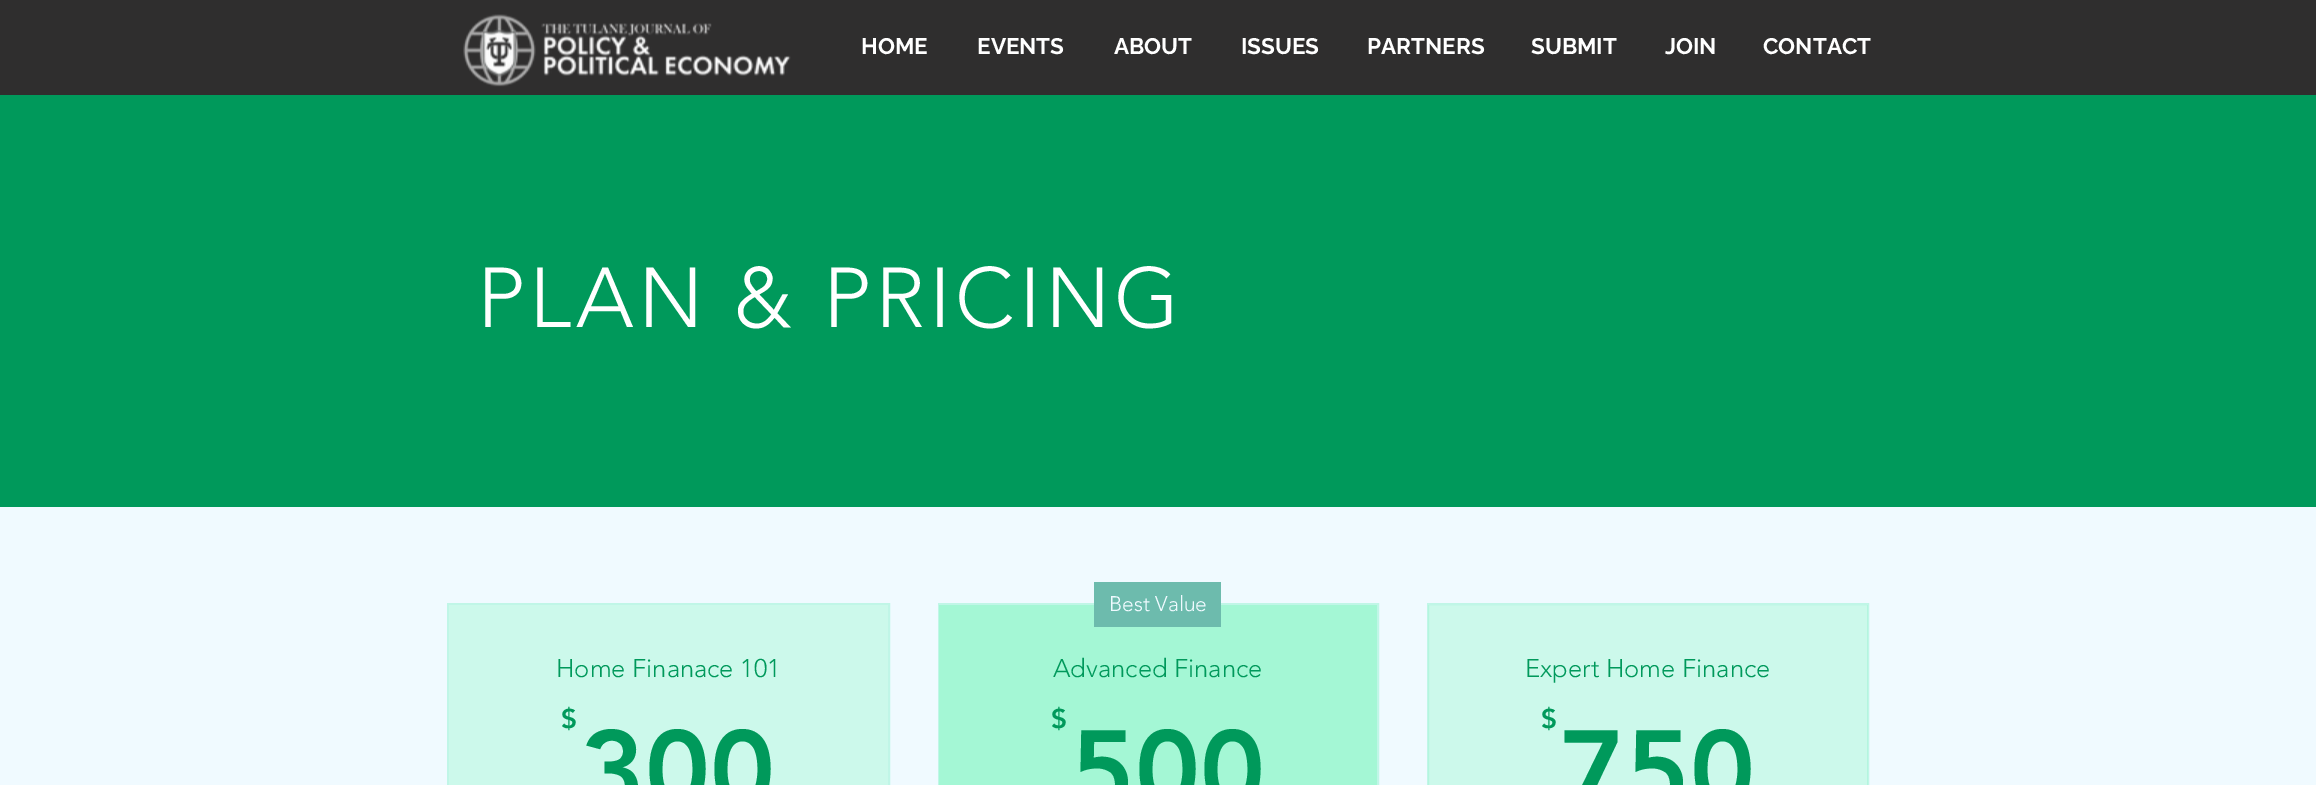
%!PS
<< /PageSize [2316 785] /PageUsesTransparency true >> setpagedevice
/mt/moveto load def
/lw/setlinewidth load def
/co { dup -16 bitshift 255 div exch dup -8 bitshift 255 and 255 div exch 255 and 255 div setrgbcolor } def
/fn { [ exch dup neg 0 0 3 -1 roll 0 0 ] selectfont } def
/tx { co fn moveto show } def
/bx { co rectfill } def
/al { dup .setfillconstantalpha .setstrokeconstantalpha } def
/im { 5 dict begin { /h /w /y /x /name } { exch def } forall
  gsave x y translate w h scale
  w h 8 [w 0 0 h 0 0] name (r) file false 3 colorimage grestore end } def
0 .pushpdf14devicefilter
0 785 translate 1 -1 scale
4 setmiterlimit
0 0 2316 785 16#F0FAFF bx
0 0 2316 95 16#2F2E2E bx
(media/1.raw) 463 14 328 73 im
0 95 2316 412 16#00995B bx
16#C0F6E7 co
2 lw
448 604 441 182 rectstroke
449 605 439 180 16#CCF9EB bx
16#C0F6E7 co
939 604 439 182 rectstroke
939 605 438 180 16#A4F7D5 bx
1094 582 127 45 16#6DBBAD bx
16#C0F6E7 co
1428 604 440 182 rectstroke
0.48 al
1428 605 440 180 16#A4F7D5 bx
1 al
(HOME) 861 54 /Raleway-Bold 22.5 16#FFFFFF tx
(EVENTS) 977 54 /Raleway-Bold 22.5 16#FFFFFF tx
(ABOUT) 1114 54 /Raleway-Bold 22.5 16#FFFFFF tx
(ISSUES) 1241 54 /Raleway-Bold 22.5 16#FFFFFF tx
(PARTNERS) 1367 54 /Raleway-Bold 22.5 16#FFFFFF tx
(SUBMIT) 1531 54 /Raleway-Bold 22.5 16#FFFFFF tx
(JOIN) 1665 54 /Raleway-Bold 22.5 16#FFFFFF tx
(CONTACT) 1763 54 /Raleway-Bold 22.5 16#FFFFFF tx
/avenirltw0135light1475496-Light 84 fn
477 327 mt 4.25 0 (PLAN & PRICING) ashow
(Home Finanace 101) 556 677 /avenirltw0135light1475496-Light 25.5 16#00995B tx
($) 561 728 /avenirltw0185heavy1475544-Black 27 16#00995B tx
(300) 580 808 /avenirltw0185heavy1475544-Black 110 16#00995B tx
(Best Value) 1109 611 /avenirltw0135light1475496-Light 21 16#F0FAFF tx
(Advanced Finance) 1053 677 /avenirltw0135light1475496-Light 25.5 16#00995B tx
($) 1051 728 /avenirltw0185heavy1475544-Black 27 16#00995B tx
(500) 1070 808 /avenirltw0185heavy1475544-Black 110 16#00995B tx
(Expert Home Finance) 1525 677 /avenirltw0135light1475496-Light 25.5 16#00995B tx
($) 1541 728 /avenirltw0185heavy1475544-Black 27 16#00995B tx
(750) 1560 808 /avenirltw0185heavy1475544-Black 110 16#00995B tx
.poppdf14devicefilter showpage
